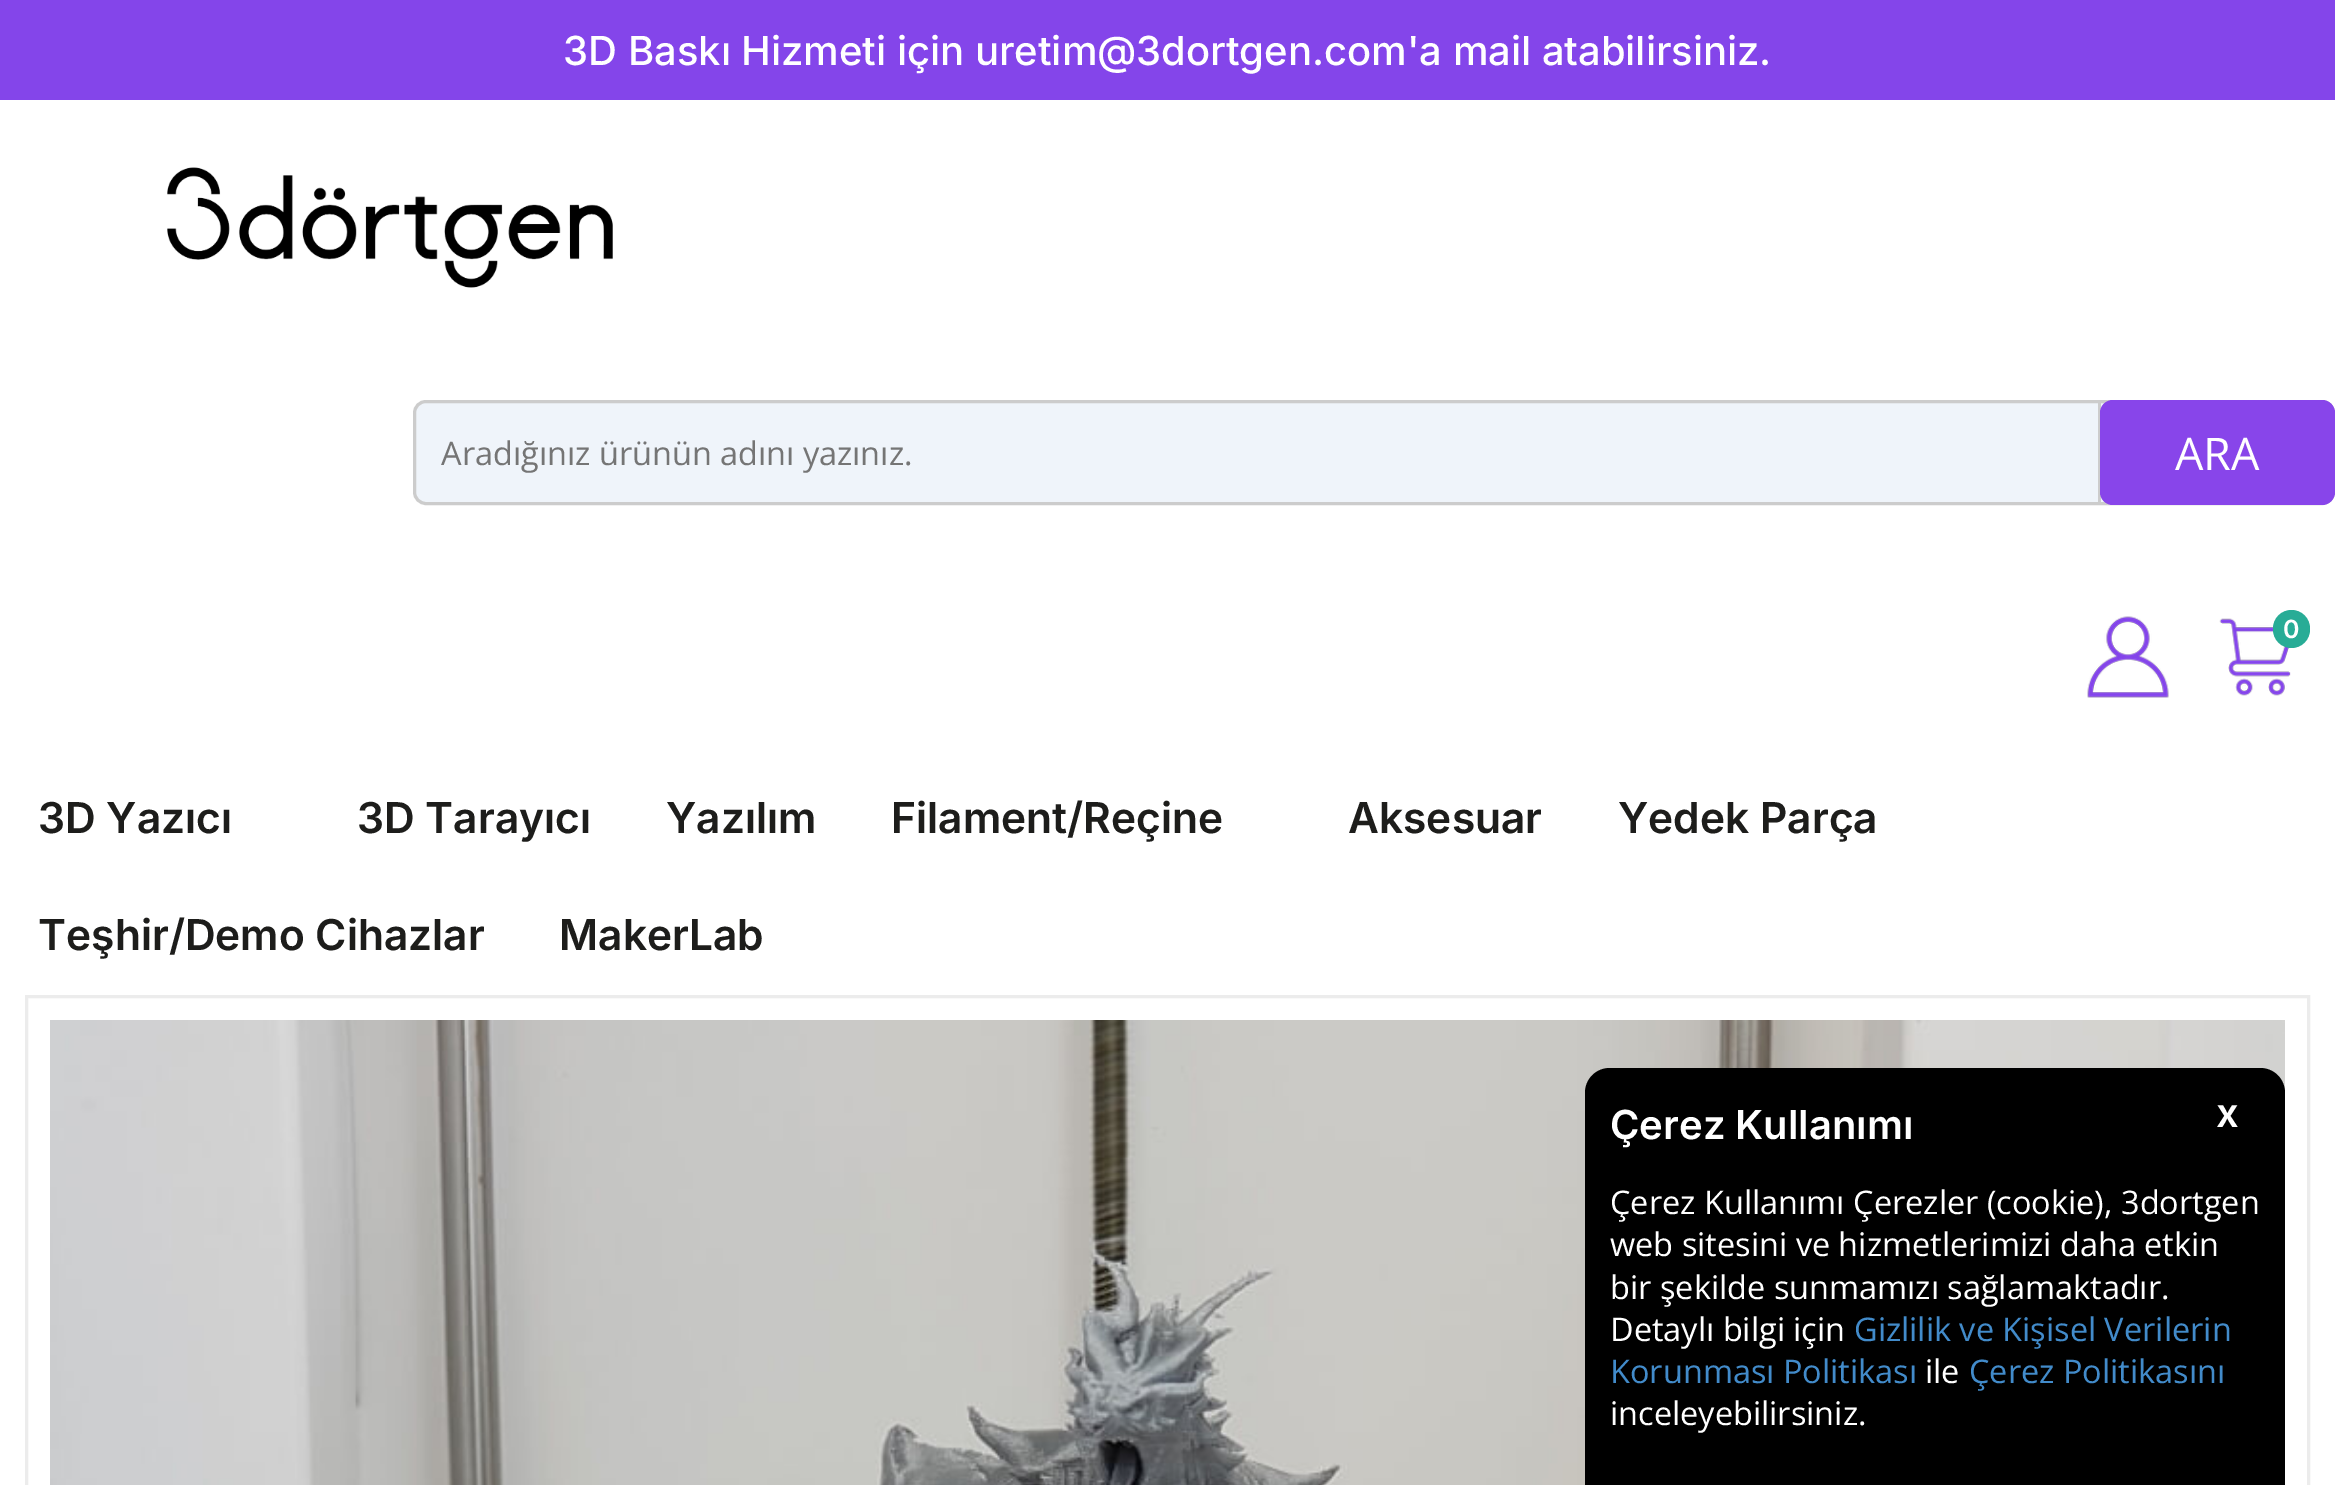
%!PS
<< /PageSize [2335 1485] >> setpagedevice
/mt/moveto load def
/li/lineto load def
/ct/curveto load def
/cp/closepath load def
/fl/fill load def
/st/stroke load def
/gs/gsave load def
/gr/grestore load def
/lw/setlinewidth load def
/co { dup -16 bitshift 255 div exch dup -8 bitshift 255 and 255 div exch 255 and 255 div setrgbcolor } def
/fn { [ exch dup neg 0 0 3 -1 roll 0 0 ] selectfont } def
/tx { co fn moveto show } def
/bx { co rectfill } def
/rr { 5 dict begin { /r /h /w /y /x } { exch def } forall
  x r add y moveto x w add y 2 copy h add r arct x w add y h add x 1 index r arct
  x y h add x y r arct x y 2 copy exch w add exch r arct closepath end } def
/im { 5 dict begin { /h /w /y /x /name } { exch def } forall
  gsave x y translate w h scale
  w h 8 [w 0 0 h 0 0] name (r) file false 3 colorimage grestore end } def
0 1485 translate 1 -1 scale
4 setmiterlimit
0 0 2335 1485 16#FFFFFF bx
0 0 2335 100 16#8445EA bx
(media/1.raw) 167 167 446 121 im
16#EFF4FA co
414.5 401.5 1919 102 11.5 rr gs fl gr
16#CCCCCC co
3 lw
st
2098 400 3 105 16#CCCCCC bx
16#8845EA co
2100 400 235 105 13 rr fl
(media/2.raw) 2087 616 82 82 im
(media/3.raw) 2219 618 72 78 im
16#28AC96 co
2273 610 37 38 18.5 rr fl
16#ECECEC co
26.5 996.5 2282 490 rectstroke
(media/4.raw) 50 1020 2235 465 im
16#000000 co
1610 1068 mt 2260 1068 li 2274 1068 2285 1079 2285 1093 ct 2285 1485 li 1585 1485 li 1585 1093 li 1585 1079 1596 1068 1610 1068 ct cp fl
(3D Baskı Hizmeti için uretim@3dortgen.com'a mail atabilirsiniz.) 563 65 /Inter-Medium 40 16#FFFFFF tx
(Aradığınız ürünün adını yazınız.) 441 465 /OpenSans-Regular 32.5 16#757575 tx
(ARA) 2175 470 /OpenSans-Regular 45 16#FFFFFF tx
(0) 2283 638 /Inter-SemiBold 25 16#FFFFFF tx
(3D Yazıcı) 38 833 /Inter-SemiBold 42.5 16#1D1D1B tx
(3D Tarayıcı) 357 833 /Inter-SemiBold 42.5 16#1D1D1B tx
(Yazılım) 666 833 /Inter-SemiBold 42.5 16#1D1D1B tx
(Filament/Reçine) 891 833 /Inter-SemiBold 42.5 16#1D1D1B tx
(Aksesuar) 1348 833 /Inter-SemiBold 42.5 16#1D1D1B tx
(Yedek Parça) 1618 833 /Inter-SemiBold 42.5 16#1D1D1B tx
(Teşhir/Demo Cihazlar) 38 950 /Inter-SemiBold 42.5 16#1D1D1B tx
(MakerLab) 559 950 /Inter-SemiBold 42.5 16#1D1D1B tx
(Çerez Kullanımı) 1610 1139 /Inter-SemiBold 40 16#FFFFFF tx
(x) 2216 1127 /Inter-SemiBold 40 16#FFFFFF tx
(Çerez Kullanımı Çerezler \(cookie\), 3dortgen) 1610 1214 /OpenSans-Regular 32.5 16#FFFFFF tx
(web sitesini ve hizmetlerimizi daha etkin) 1610 1256 /OpenSans-Regular 32.5 16#FFFFFF tx
(bir şekilde sunmamızı sağlamaktadır.) 1610 1299 /OpenSans-Regular 32.5 16#FFFFFF tx
(Detaylı bilgi için) 1610 1341 /OpenSans-Regular 32.5 16#FFFFFF tx
(Gizlilik ve Kişisel Verilerin) 1854 1341 /OpenSans-Regular 32.5 16#428BCA tx
(Korunması Politikası) 1610 1383 /OpenSans-Regular 32.5 16#428BCA tx
(ile) 1925 1383 /OpenSans-Regular 32.5 16#FFFFFF tx
(Çerez Politikasını) 1969 1383 /OpenSans-Regular 32.5 16#428BCA tx
(inceleyebilirsiniz.) 1610 1425 /OpenSans-Regular 32.5 16#FFFFFF tx
showpage
